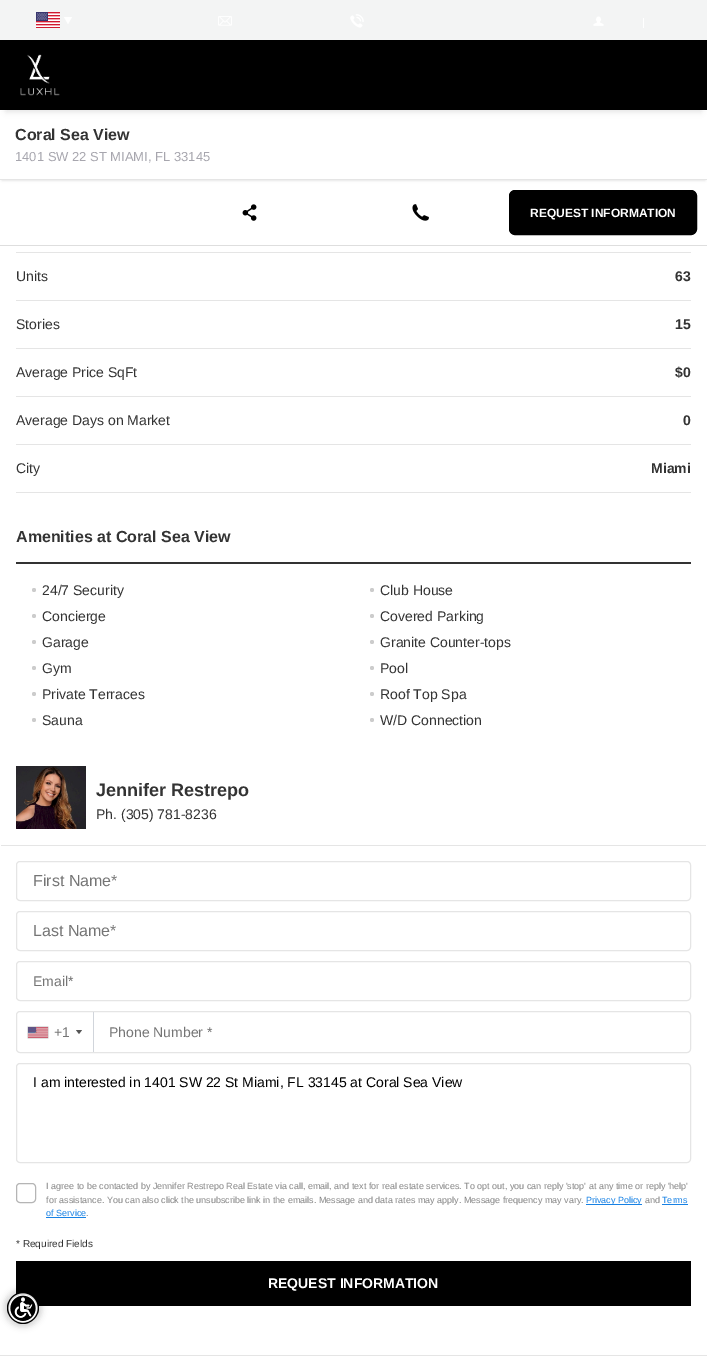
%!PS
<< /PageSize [707 1356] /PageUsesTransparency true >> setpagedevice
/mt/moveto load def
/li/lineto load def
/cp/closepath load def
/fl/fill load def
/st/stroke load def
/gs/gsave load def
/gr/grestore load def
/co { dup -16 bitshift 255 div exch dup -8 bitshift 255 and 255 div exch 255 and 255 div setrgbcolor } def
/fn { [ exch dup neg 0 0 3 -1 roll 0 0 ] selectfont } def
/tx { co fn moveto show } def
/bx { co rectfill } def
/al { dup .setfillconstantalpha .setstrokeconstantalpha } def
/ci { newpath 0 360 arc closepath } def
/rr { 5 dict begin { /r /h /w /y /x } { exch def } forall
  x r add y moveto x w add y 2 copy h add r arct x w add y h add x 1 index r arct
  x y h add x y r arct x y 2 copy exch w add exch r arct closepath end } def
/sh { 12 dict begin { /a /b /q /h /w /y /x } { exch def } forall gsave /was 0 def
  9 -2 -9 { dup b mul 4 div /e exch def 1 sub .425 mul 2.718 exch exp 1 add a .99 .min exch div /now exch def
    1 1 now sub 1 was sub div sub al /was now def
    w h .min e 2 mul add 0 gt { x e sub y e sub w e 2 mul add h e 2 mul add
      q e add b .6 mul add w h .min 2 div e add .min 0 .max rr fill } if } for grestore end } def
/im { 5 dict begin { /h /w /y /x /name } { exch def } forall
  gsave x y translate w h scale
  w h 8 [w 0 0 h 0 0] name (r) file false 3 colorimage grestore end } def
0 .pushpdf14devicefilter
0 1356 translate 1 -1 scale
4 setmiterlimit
0 0 707 1356 16#FFFFFF bx
16#000000 co
2 114 703 66 0 1.5 .16 sh
0 112 707 67 16#FFFFFF bx
16#000000 co
6 14 695 98 0 3 .1 sh
0 40 707 70 16#000000 bx
0 0 707 40 16#F3F4F4 bx
(media/1.raw) 36 12 24 16 im
16#FFFFFF co
64 17 mt 72 17 li 68 24 li cp fl
(media/2.raw) 218 16 14 10 im
(media/3.raw) 350 14 14 14 im
(media/4.raw) 593 16 11 10 im
643 18 1 10 16#FFFFFF bx
(media/5.raw) 20 54 40 42 im
0 179 707 1 16#E5E5E5 bx
0 245 707 1 16#DEDEDE bx
(media/6.raw) 242 204 15 17 im
(media/7.raw) 412 204 17 17 im
16#000000 co
509.5 190.5 187 44 5.5 rr gs fl gr
st
16 252 675 1 16#E5E5E5 bx
16 300 675 1 16#E5E5E5 bx
16 348 675 1 16#E5E5E5 bx
16 396 675 1 16#E5E5E5 bx
16 444 675 1 16#E5E5E5 bx
16 492 675 1 16#E5E5E5 bx
16 562 675 2 16#333333 bx
16#CCCCCC co
34 590 2 ci fl
372 590 2 ci fl
34 616 2 ci fl
372 616 2 ci fl
34 642 2 ci fl
372 642 2 ci fl
34 668 2 ci fl
372 668 2 ci fl
34 694 2 ci fl
372 694 2 ci fl
34 720 2 ci fl
372 720 2 ci fl
0 1355 707 1 16#E5E5E5 bx
(media/8.raw) 16 766 70 63 im
1 845 705 1 16#E5E5E5 bx
16.5 861.5 674 39 3.5 rr st
16.5 911.5 674 39 3.5 rr st
16.5 961.5 674 39 3.5 rr st
16.5 1011.5 674 41 3.5 rr st
16#888888 co
28 1027 20 11 0 .5 1 sh
(media/9.raw) 28 1027 20 11 im
16#555555 co
76 1030 mt 82 1030 li 79 1034 li cp fl
93 1012 1 40 16#D1D5DB bx
16#E5E5E5 co
16.5 1063.5 674 99 3.5 rr st
16#B5B5B5 co
16.5 1183.5 19 19 3.5 rr st
586 1204 56 1 16#1781E4 bx
662 1204 26 1 16#1781E4 bx
46 1217 40 1 16#1781E4 bx
16 1261 675 45 16#000000 bx
4 1289 38 38 19 3 .16 sh
23 1308 16 ci fl
(media/10.raw) 8 1293 30 30 im
(media/11.raw) 9 1294 28 29 im
(Coral Sea View) 15 140 /LiberationSans-Bold 16 16#333333 tx
(1401 SW 22 ST MIAMI, FL 33145) 15 161 /LiberationSans-Regular 13 16#A7A6AE tx
(REQUEST INFORMATION) 530 217 /LiberationSans-Bold 12 16#FFFFFF tx
(Units) 16 281 /LiberationSans-Regular 14 16#333333 tx
(63) 675 281 /LiberationSans-Bold 14 16#333333 tx
(Stories) 16 329 /LiberationSans-Regular 14 16#333333 tx
(15) 675 329 /LiberationSans-Bold 14 16#333333 tx
(Average Price SqFt) 16 377 /LiberationSans-Regular 14 16#333333 tx
($0) 675 377 /LiberationSans-Bold 14 16#333333 tx
(Average Days on Market) 16 425 /LiberationSans-Regular 14 16#333333 tx
(0) 683 425 /LiberationSans-Bold 14 16#333333 tx
(City) 16 473 /LiberationSans-Regular 14 16#333333 tx
(Miami) 651 473 /LiberationSans-Bold 14 16#333333 tx
(Amenities at Coral Sea View) 16 542 /LiberationSans-Bold 16 16#333333 tx
(24/7 Security) 42 595 /LiberationSans-Regular 14 16#333333 tx
(Club House) 380 595 /LiberationSans-Regular 14 16#333333 tx
(Concierge) 42 621 /LiberationSans-Regular 14 16#333333 tx
(Covered Parking) 380 621 /LiberationSans-Regular 14 16#333333 tx
(Garage) 42 647 /LiberationSans-Regular 14 16#333333 tx
(Granite Counter-tops) 380 647 /LiberationSans-Regular 14 16#333333 tx
(Gym) 42 673 /LiberationSans-Regular 14 16#333333 tx
(Pool) 380 673 /LiberationSans-Regular 14 16#333333 tx
(Private Terraces) 42 699 /LiberationSans-Regular 14 16#333333 tx
(Roof Top Spa) 380 699 /LiberationSans-Regular 14 16#333333 tx
(Sauna) 42 725 /LiberationSans-Regular 14 16#333333 tx
(W/D Connection) 380 725 /LiberationSans-Regular 14 16#333333 tx
(Jennifer Restrepo) 96 796 /LiberationSans-Bold 18 16#333333 tx
(Ph. \(305\) 781-8236) 96 819 /LiberationSans-Regular 14 16#333333 tx
(First Name*) 33 886 /LiberationSans-Regular 16 16#757575 tx
(Last Name*) 33 936 /LiberationSans-Regular 16 16#757575 tx
(Email*) 33 986 /LiberationSans-Regular 14 16#757575 tx
(+1) 54 1037 /LiberationSans-Regular 14 16#757575 tx
(Phone Number *) 109 1037 /LiberationSans-Regular 14 16#757575 tx
(I am interested in 1401 SW 22 St Miami, FL 33145 at Coral Sea View) 33 1087 /LiberationSans-Regular 14 16#000000 tx
(I agree to be contacted by Jennifer Restrepo Real Estate via call, email, and text for real estate services. To opt out, you can reply 'stop' at any time or reply 'help') 46 1189 /LiberationSans-Regular 9 16#858585 tx
(for assistance. You can also click the unsubscribe link in the emails. Message and data rates may apply. Message frequency may vary.) 46 1203 /LiberationSans-Regular 9 16#858585 tx
(Privacy Policy) 586 1203 /LiberationSans-Regular 9 16#1781E4 tx
(and) 645 1203 /LiberationSans-Regular 9 16#858585 tx
(Terms) 662 1203 /LiberationSans-Regular 9 16#1781E4 tx
(of Service) 46 1216 /LiberationSans-Regular 9 16#1781E4 tx
(.) 86 1216 /LiberationSans-Regular 9 16#858585 tx
(* Required Fields) 16 1247 /LiberationSans-Regular 10 16#333333 tx
(REQUEST INFORMATION) 268 1288 /LiberationSans-Bold 14 16#FFFFFF tx
.poppdf14devicefilter showpage
